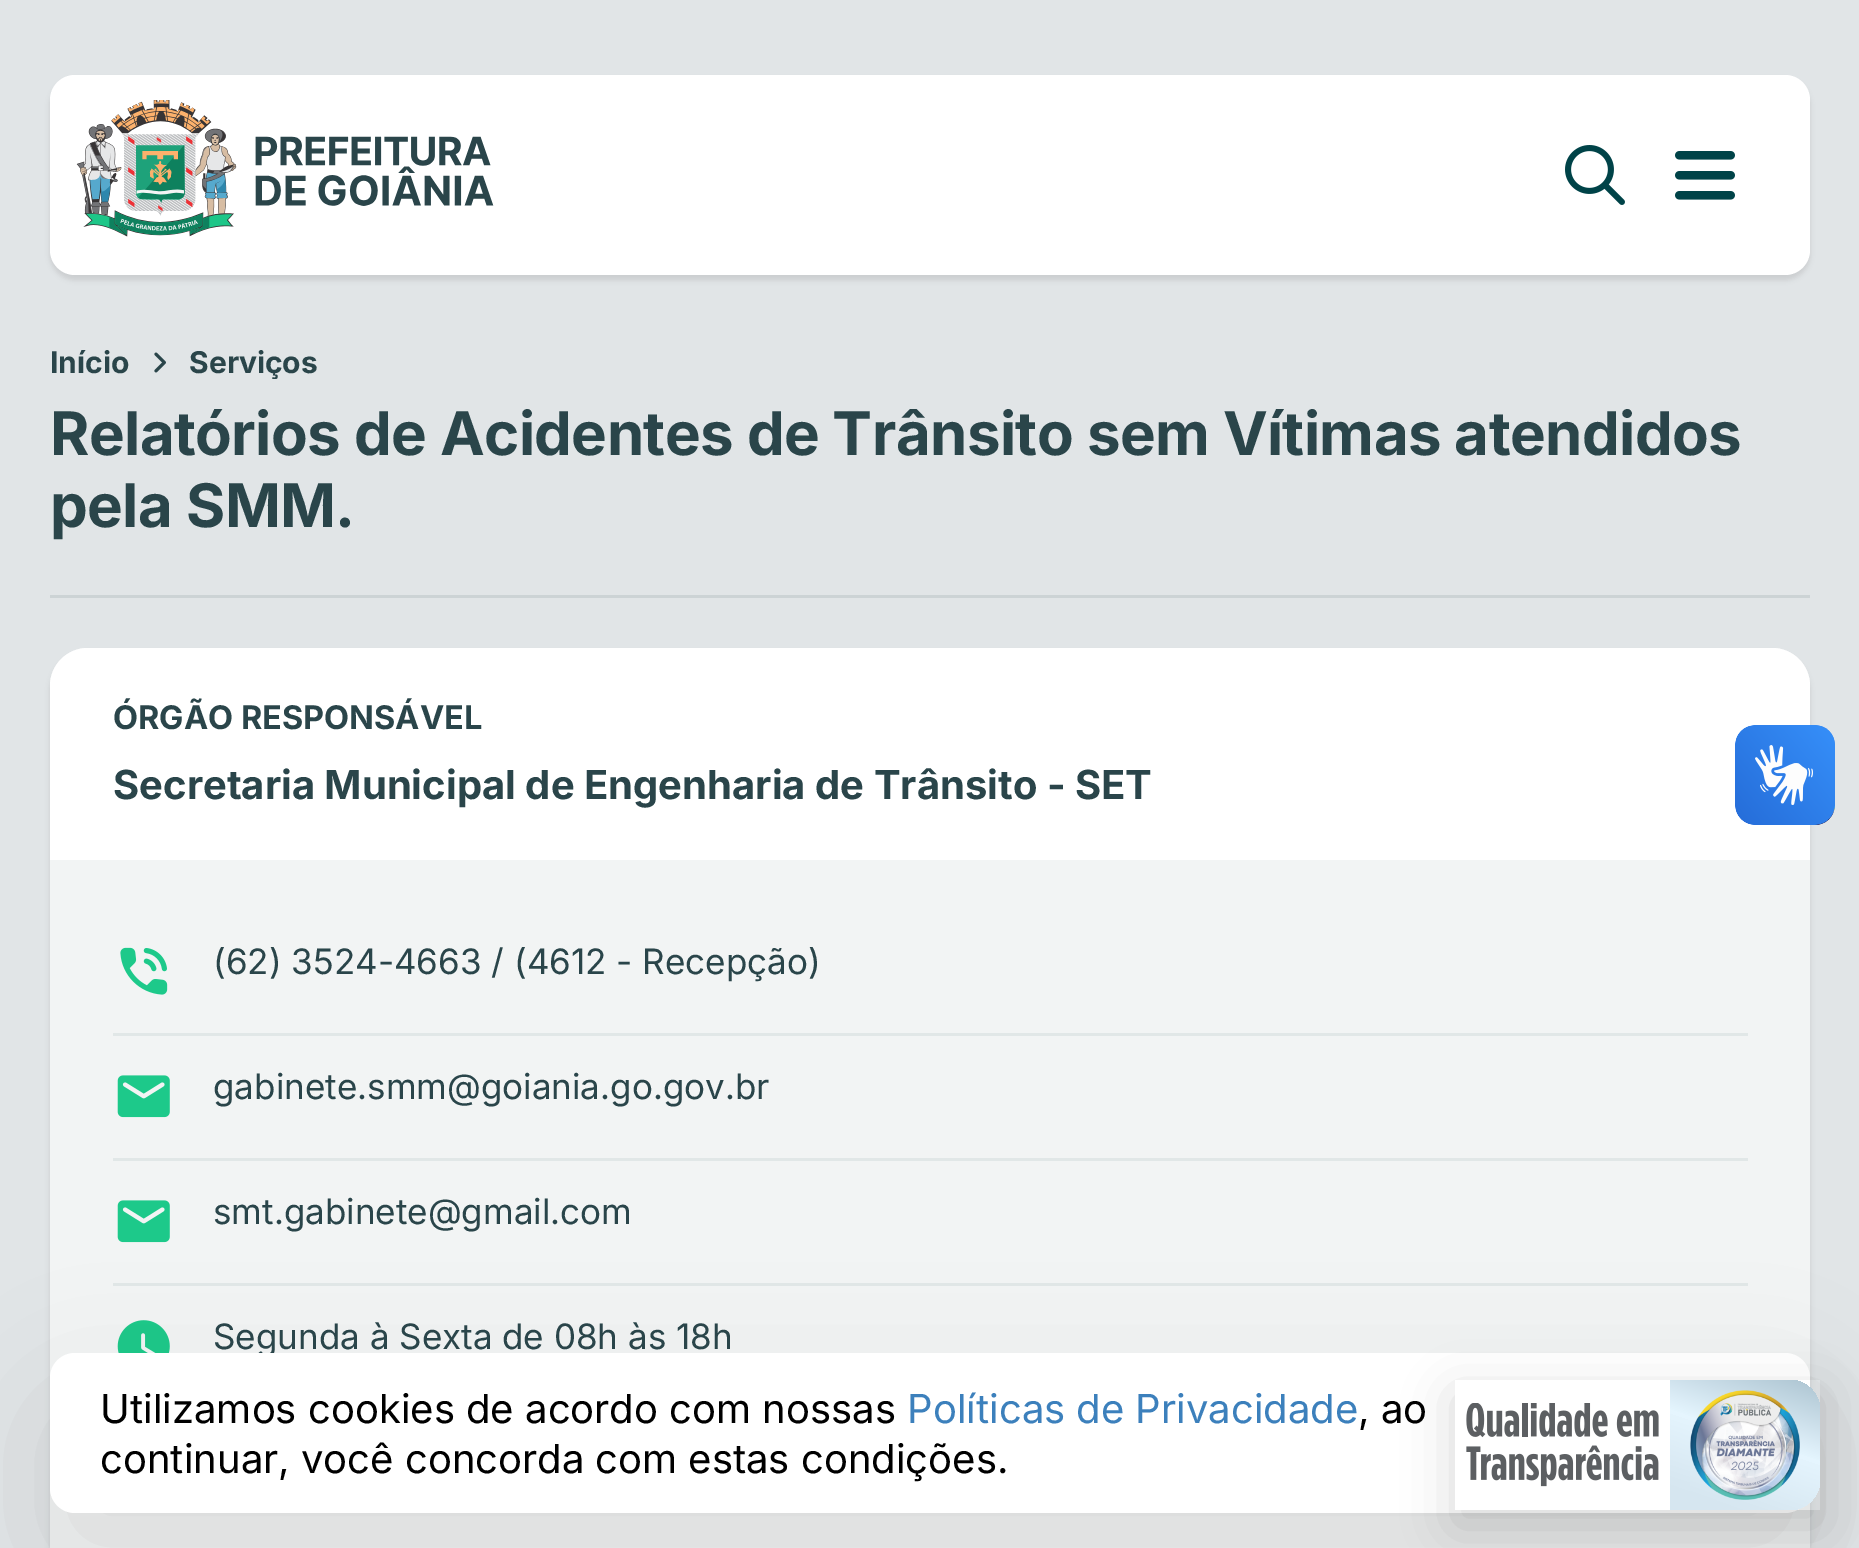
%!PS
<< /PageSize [1859 1548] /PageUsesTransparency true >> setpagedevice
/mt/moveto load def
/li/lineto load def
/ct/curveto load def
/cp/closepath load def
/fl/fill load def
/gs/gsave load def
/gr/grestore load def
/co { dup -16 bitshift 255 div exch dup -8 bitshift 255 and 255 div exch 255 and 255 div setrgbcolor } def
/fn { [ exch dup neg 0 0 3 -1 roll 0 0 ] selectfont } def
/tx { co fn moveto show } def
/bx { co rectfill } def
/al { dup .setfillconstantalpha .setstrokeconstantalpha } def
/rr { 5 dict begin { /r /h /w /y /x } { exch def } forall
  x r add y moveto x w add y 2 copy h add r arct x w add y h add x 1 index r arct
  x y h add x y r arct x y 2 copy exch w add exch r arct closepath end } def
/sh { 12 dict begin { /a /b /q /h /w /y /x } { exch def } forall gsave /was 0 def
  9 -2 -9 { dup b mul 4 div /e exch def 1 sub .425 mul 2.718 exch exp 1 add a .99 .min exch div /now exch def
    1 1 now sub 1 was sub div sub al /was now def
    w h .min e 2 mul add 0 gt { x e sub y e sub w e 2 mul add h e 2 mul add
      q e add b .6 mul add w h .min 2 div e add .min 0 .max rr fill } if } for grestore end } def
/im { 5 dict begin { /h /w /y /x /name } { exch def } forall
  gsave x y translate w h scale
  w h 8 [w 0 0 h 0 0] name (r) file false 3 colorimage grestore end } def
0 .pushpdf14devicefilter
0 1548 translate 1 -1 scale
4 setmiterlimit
0 0 1859 1548 16#E1E5E7 bx
16#000000 co
50 80 1760 200 25 2.5 .1 sh
16#FFFFFF co
50 75 1760 200 25 rr fl
(media/1.raw) 76 100 418 137 im
(media/2.raw) 1565 145 60 60 im
(media/3.raw) 1675 151 60 49 im
(media/4.raw) 154 352 12 21 im
50 595 1760 3 16#CCD3D5 bx
16#000000 co
50 653 1760 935 38 2.5 .1 sh
16#F2F4F4 co
50 648 1760 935 38 rr fl
16#FFFFFF co
88 648 mt 1772 648 li 1793 648 1810 665 1810 686 ct 1810 860 li 50 860 li 50 686 li 50 665 67 648 88 648 ct cp fl
113 1033 1635 3 16#E1E7E7 bx
(media/5.raw) 120 947 48 48 im
113 1158 1635 3 16#E1E7E7 bx
(media/6.raw) 117 1075 53 43 im
113 1283 1635 3 16#E1E7E7 bx
(media/6.raw) 117 1200 53 43 im
(media/7.raw) 117 1320 53 33 im
(media/8.raw) 1735 725 100 100 im
(media/9.raw) 1735 725 100 100 im
16#000000 co
50 1403 1760 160 25 62.5 .1 sh
(Início) 50 373 /Inter-Bold 30 16#2A454A tx
(Serviços) 189 373 /Inter-Bold 30 16#2A454A tx
/Inter-Bold 60 fn
50 455 mt -.6 0 (Relatórios de Acidentes de Trânsito sem Vítimas atendidos) ashow
50 527 mt -.6 0 (pela SMM.) ashow
(ÓRGÃO RESPONSÁVEL) 113 729 /Inter-Bold 32.5 16#2A454A tx
(Secretaria Municipal de Engenharia de Trânsito - SET) 113 799 /Inter-Bold 40 16#2A454A tx
(\(62\) 3524-4663 / \(4612 - Recepção\)) 213 974 /Inter-Regular 35 16#2A454A tx
(gabinete.smm@goiania.go.gov.br) 213 1099 /Inter-Regular 35 16#2A454A tx
(smt.gabinete@gmail.com) 213 1224 /Inter-Regular 35 16#2A454A tx
(Segunda à Sexta de 08h às 18h) 213 1349 /Inter-Regular 35 16#2A454A tx
16#FFFFFF co
50 1353 1760 160 25 rr fl
(Utilizamos cookies de acordo com nossas) 100 1423 /Inter-Regular 40 16#000000 tx
(Políticas de Privacidade) 907 1423 /Inter-Regular 40 16#3C80BC tx
(, ao) 1358 1423 /Inter-Regular 40 16#000000 tx
(continuar, você concorda com estas condições.) 100 1473 /Inter-Regular 40 16#000000 tx
gs
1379 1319 mt 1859 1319 li 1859 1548 li 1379 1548 li cp 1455 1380 mt 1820 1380 li 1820 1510 li 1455 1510 li cp eoclip newpath
1455 1395 365 130 0 25 .15 sh
gr
16#FFFFFF co
1455 1380 365 130 30 rr fl
(media/10.raw) 1466 1403 193 84 im
gs 1670 1380 mt 1790 1380 li 1806.5 1380 1820 1393.5 1820 1410 ct 1820 1480 li 1820 1496.5 1806.5 1510 1790 1510 ct 1670 1510 li cp clip newpath
<< /ShadingType 2 /ColorSpace /DeviceRGB /Coords [1773 1364 1717 1526] /Extend [true true] /Function << /FunctionType 3 /Domain [0 1] /Functions [<< /FunctionType 2 /Domain [0 1] /C0 [.675 .769 .82] /C1 [.898 .961 .996] /N 1 >> << /FunctionType 2 /Domain [0 1] /C0 [.898 .961 .996] /C1 [.839 .902 .941] /N 1 >> << /FunctionType 2 /Domain [0 1] /C0 [.839 .902 .941] /C1 [.839 .902 .941] /N 1 >>] /Bounds [.45 .87] /Encode [0 1 0 1 0 1] >> >> shfill gr
(media/11.raw) 1690 1390 110 110 im
.poppdf14devicefilter showpage
